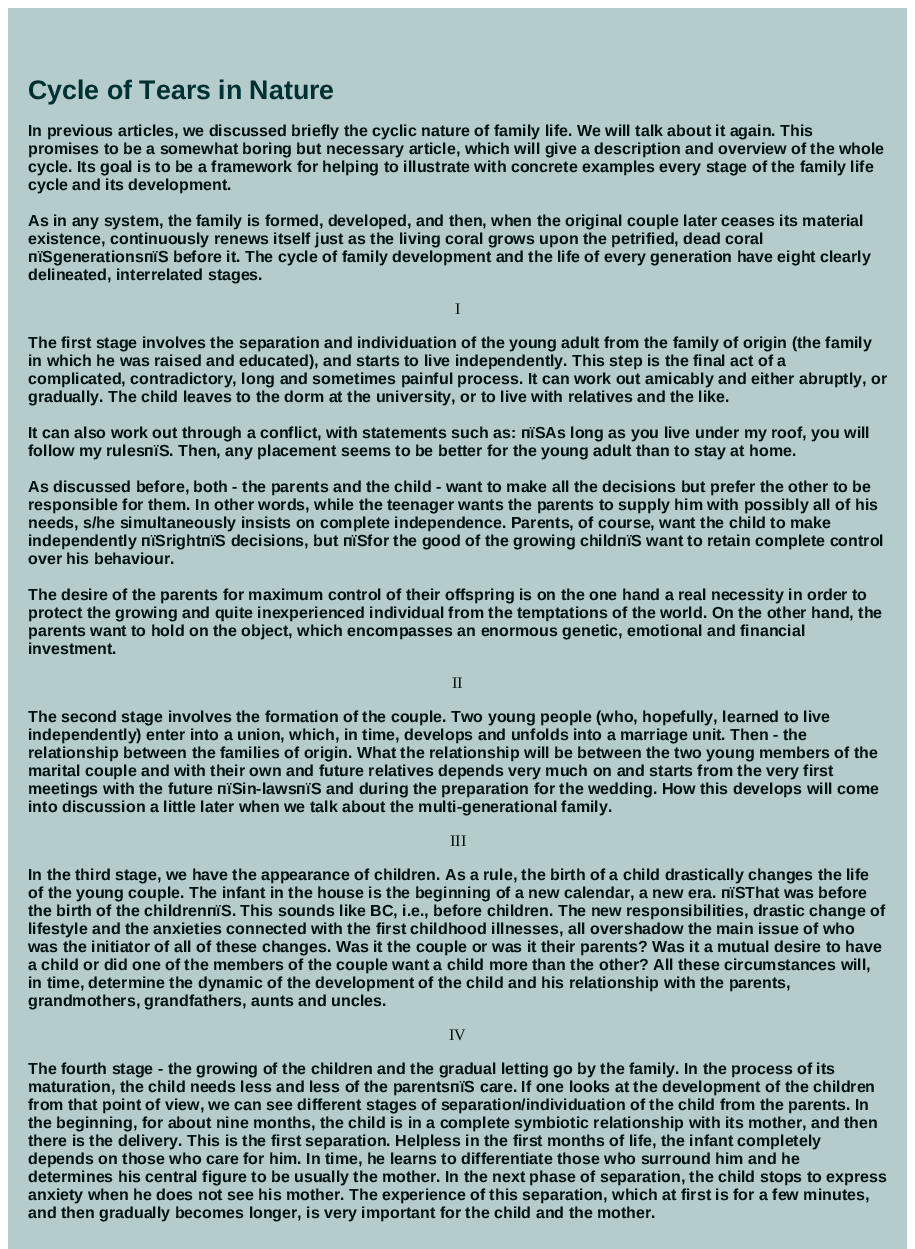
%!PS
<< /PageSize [915 1249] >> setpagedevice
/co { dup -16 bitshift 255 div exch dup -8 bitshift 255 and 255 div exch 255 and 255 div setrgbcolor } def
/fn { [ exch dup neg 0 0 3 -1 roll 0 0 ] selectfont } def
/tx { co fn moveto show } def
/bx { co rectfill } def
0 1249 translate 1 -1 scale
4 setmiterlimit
0 0 915 1249 16#FFFFFF bx
8 8 899 1241 16#B4CCCC bx
(Cycle of Tears in Nature) 28 99 /LiberationSans-Bold 26.75 16#003131 tx
(In previous articles, we discussed briefly the cyclic nature of family life. We will talk about it again. This) 28 136 /LiberationSans-Bold 16 16#001111 tx
(promises to be a somewhat boring but necessary article, which will give a description and overview of the whole) 28 154 /LiberationSans-Bold 16 16#001111 tx
(cycle. Its goal is to be a framework for helping to illustrate with concrete examples every stage of the family life) 28 172 /LiberationSans-Bold 16 16#001111 tx
(cycle and its development.) 28 190 /LiberationSans-Bold 16 16#001111 tx
(As in any system, the family is formed, developed, and then, when the original couple later ceases its material) 28 226 /LiberationSans-Bold 16 16#001111 tx
(existence, continuously renews itself just as the living coral grows upon the petrified, dead coral) 28 244 /LiberationSans-Bold 16 16#001111 tx
(пїЅgenerationsпїЅ before it. The cycle of family development and the life of every generation have eight clearly) 28 262 /LiberationSans-Bold 16 16#001111 tx
(delineated, interrelated stages.) 28 280 /LiberationSans-Bold 16 16#001111 tx
(I) 455 314 /LiberationSerif-Regular 16 16#001111 tx
(The first stage involves the separation and individuation of the young adult from the family of origin \(the family) 28 348 /LiberationSans-Bold 16 16#001111 tx
(in which he was raised and educated\), and starts to live independently. This step is the final act of a) 28 366 /LiberationSans-Bold 16 16#001111 tx
(complicated, contradictory, long and sometimes painful process. It can work out amicably and either abruptly, or) 28 384 /LiberationSans-Bold 16 16#001111 tx
(gradually. The child leaves to the dorm at the university, or to live with relatives and the like.) 28 402 /LiberationSans-Bold 16 16#001111 tx
(It can also work out through a conflict, with statements such as: пїЅAs long as you live under my roof, you will) 28 438 /LiberationSans-Bold 16 16#001111 tx
(follow my rulesпїЅ. Then, any placement seems to be better for the young adult than to stay at home.) 28 456 /LiberationSans-Bold 16 16#001111 tx
(As discussed before, both - the parents and the child - want to make all the decisions but prefer the other to be) 28 492 /LiberationSans-Bold 16 16#001111 tx
(responsible for them. In other words, while the teenager wants the parents to supply him with possibly all of his) 28 510 /LiberationSans-Bold 16 16#001111 tx
(needs, s/he simultaneously insists on complete independence. Parents, of course, want the child to make) 28 528 /LiberationSans-Bold 16 16#001111 tx
(independently пїЅrightпїЅ decisions, but пїЅfor the good of the growing childпїЅ want to retain complete control) 28 546 /LiberationSans-Bold 16 16#001111 tx
(over his behaviour.) 28 564 /LiberationSans-Bold 16 16#001111 tx
(The desire of the parents for maximum control of their offspring is on the one hand a real necessity in order to) 28 600 /LiberationSans-Bold 16 16#001111 tx
(protect the growing and quite inexperienced individual from the temptations of the world. On the other hand, the) 28 618 /LiberationSans-Bold 16 16#001111 tx
(parents want to hold on the object, which encompasses an enormous genetic, emotional and financial) 28 636 /LiberationSans-Bold 16 16#001111 tx
(investment.) 28 654 /LiberationSans-Bold 16 16#001111 tx
(II) 452 688 /LiberationSerif-Regular 16 16#001111 tx
(The second stage involves the formation of the couple. Two young people \(who, hopefully, learned to live) 28 722 /LiberationSans-Bold 16 16#001111 tx
(independently\) enter into a union, which, in time, develops and unfolds into a marriage unit. Then - the) 28 740 /LiberationSans-Bold 16 16#001111 tx
(relationship between the families of origin. What the relationship will be between the two young members of the) 28 758 /LiberationSans-Bold 16 16#001111 tx
(marital couple and with their own and future relatives depends very much on and starts from the very first) 28 776 /LiberationSans-Bold 16 16#001111 tx
(meetings with the future пїЅin-lawsпїЅ and during the preparation for the wedding. How this develops will come) 28 794 /LiberationSans-Bold 16 16#001111 tx
(into discussion a little later when we talk about the multi-generational family.) 28 812 /LiberationSans-Bold 16 16#001111 tx
(III) 450 846 /LiberationSerif-Regular 16 16#001111 tx
(In the third stage, we have the appearance of children. As a rule, the birth of a child drastically changes the life) 28 880 /LiberationSans-Bold 16 16#001111 tx
(of the young couple. The infant in the house is the beginning of a new calendar, a new era. пїЅThat was before) 28 898 /LiberationSans-Bold 16 16#001111 tx
(the birth of the childrenпїЅ. This sounds like BC, i.e., before children. The new responsibilities, drastic change of) 28 916 /LiberationSans-Bold 16 16#001111 tx
(lifestyle and the anxieties connected with the first childhood illnesses, all overshadow the main issue of who) 28 934 /LiberationSans-Bold 16 16#001111 tx
(was the initiator of all of these changes. Was it the couple or was it their parents? Was it a mutual desire to have) 28 952 /LiberationSans-Bold 16 16#001111 tx
(a child or did one of the members of the couple want a child more than the other? All these circumstances will,) 28 970 /LiberationSans-Bold 16 16#001111 tx
(in time, determine the dynamic of the development of the child and his relationship with the parents,) 28 988 /LiberationSans-Bold 16 16#001111 tx
(grandmothers, grandfathers, aunts and uncles.) 28 1006 /LiberationSans-Bold 16 16#001111 tx
(IV) 449 1040 /LiberationSerif-Regular 16 16#001111 tx
(The fourth stage - the growing of the children and the gradual letting go by the family. In the process of its) 28 1074 /LiberationSans-Bold 16 16#001111 tx
(maturation, the child needs less and less of the parentsпїЅ care. If one looks at the development of the children) 28 1092 /LiberationSans-Bold 16 16#001111 tx
(from that point of view, we can see different stages of separation/individuation of the child from the parents. In) 28 1110 /LiberationSans-Bold 16 16#001111 tx
(the beginning, for about nine months, the child is in a complete symbiotic relationship with its mother, and then) 28 1128 /LiberationSans-Bold 16 16#001111 tx
(there is the delivery. This is the first separation. Helpless in the first months of life, the infant completely) 28 1146 /LiberationSans-Bold 16 16#001111 tx
(depends on those who care for him. In time, he learns to differentiate those who surround him and he) 28 1164 /LiberationSans-Bold 16 16#001111 tx
(determines his central figure to be usually the mother. In the next phase of separation, the child stops to express) 28 1182 /LiberationSans-Bold 16 16#001111 tx
(anxiety when he does not see his mother. The experience of this separation, which at first is for a few minutes,) 28 1200 /LiberationSans-Bold 16 16#001111 tx
(and then gradually becomes longer, is very important for the child and the mother.) 28 1218 /LiberationSans-Bold 16 16#001111 tx
showpage
